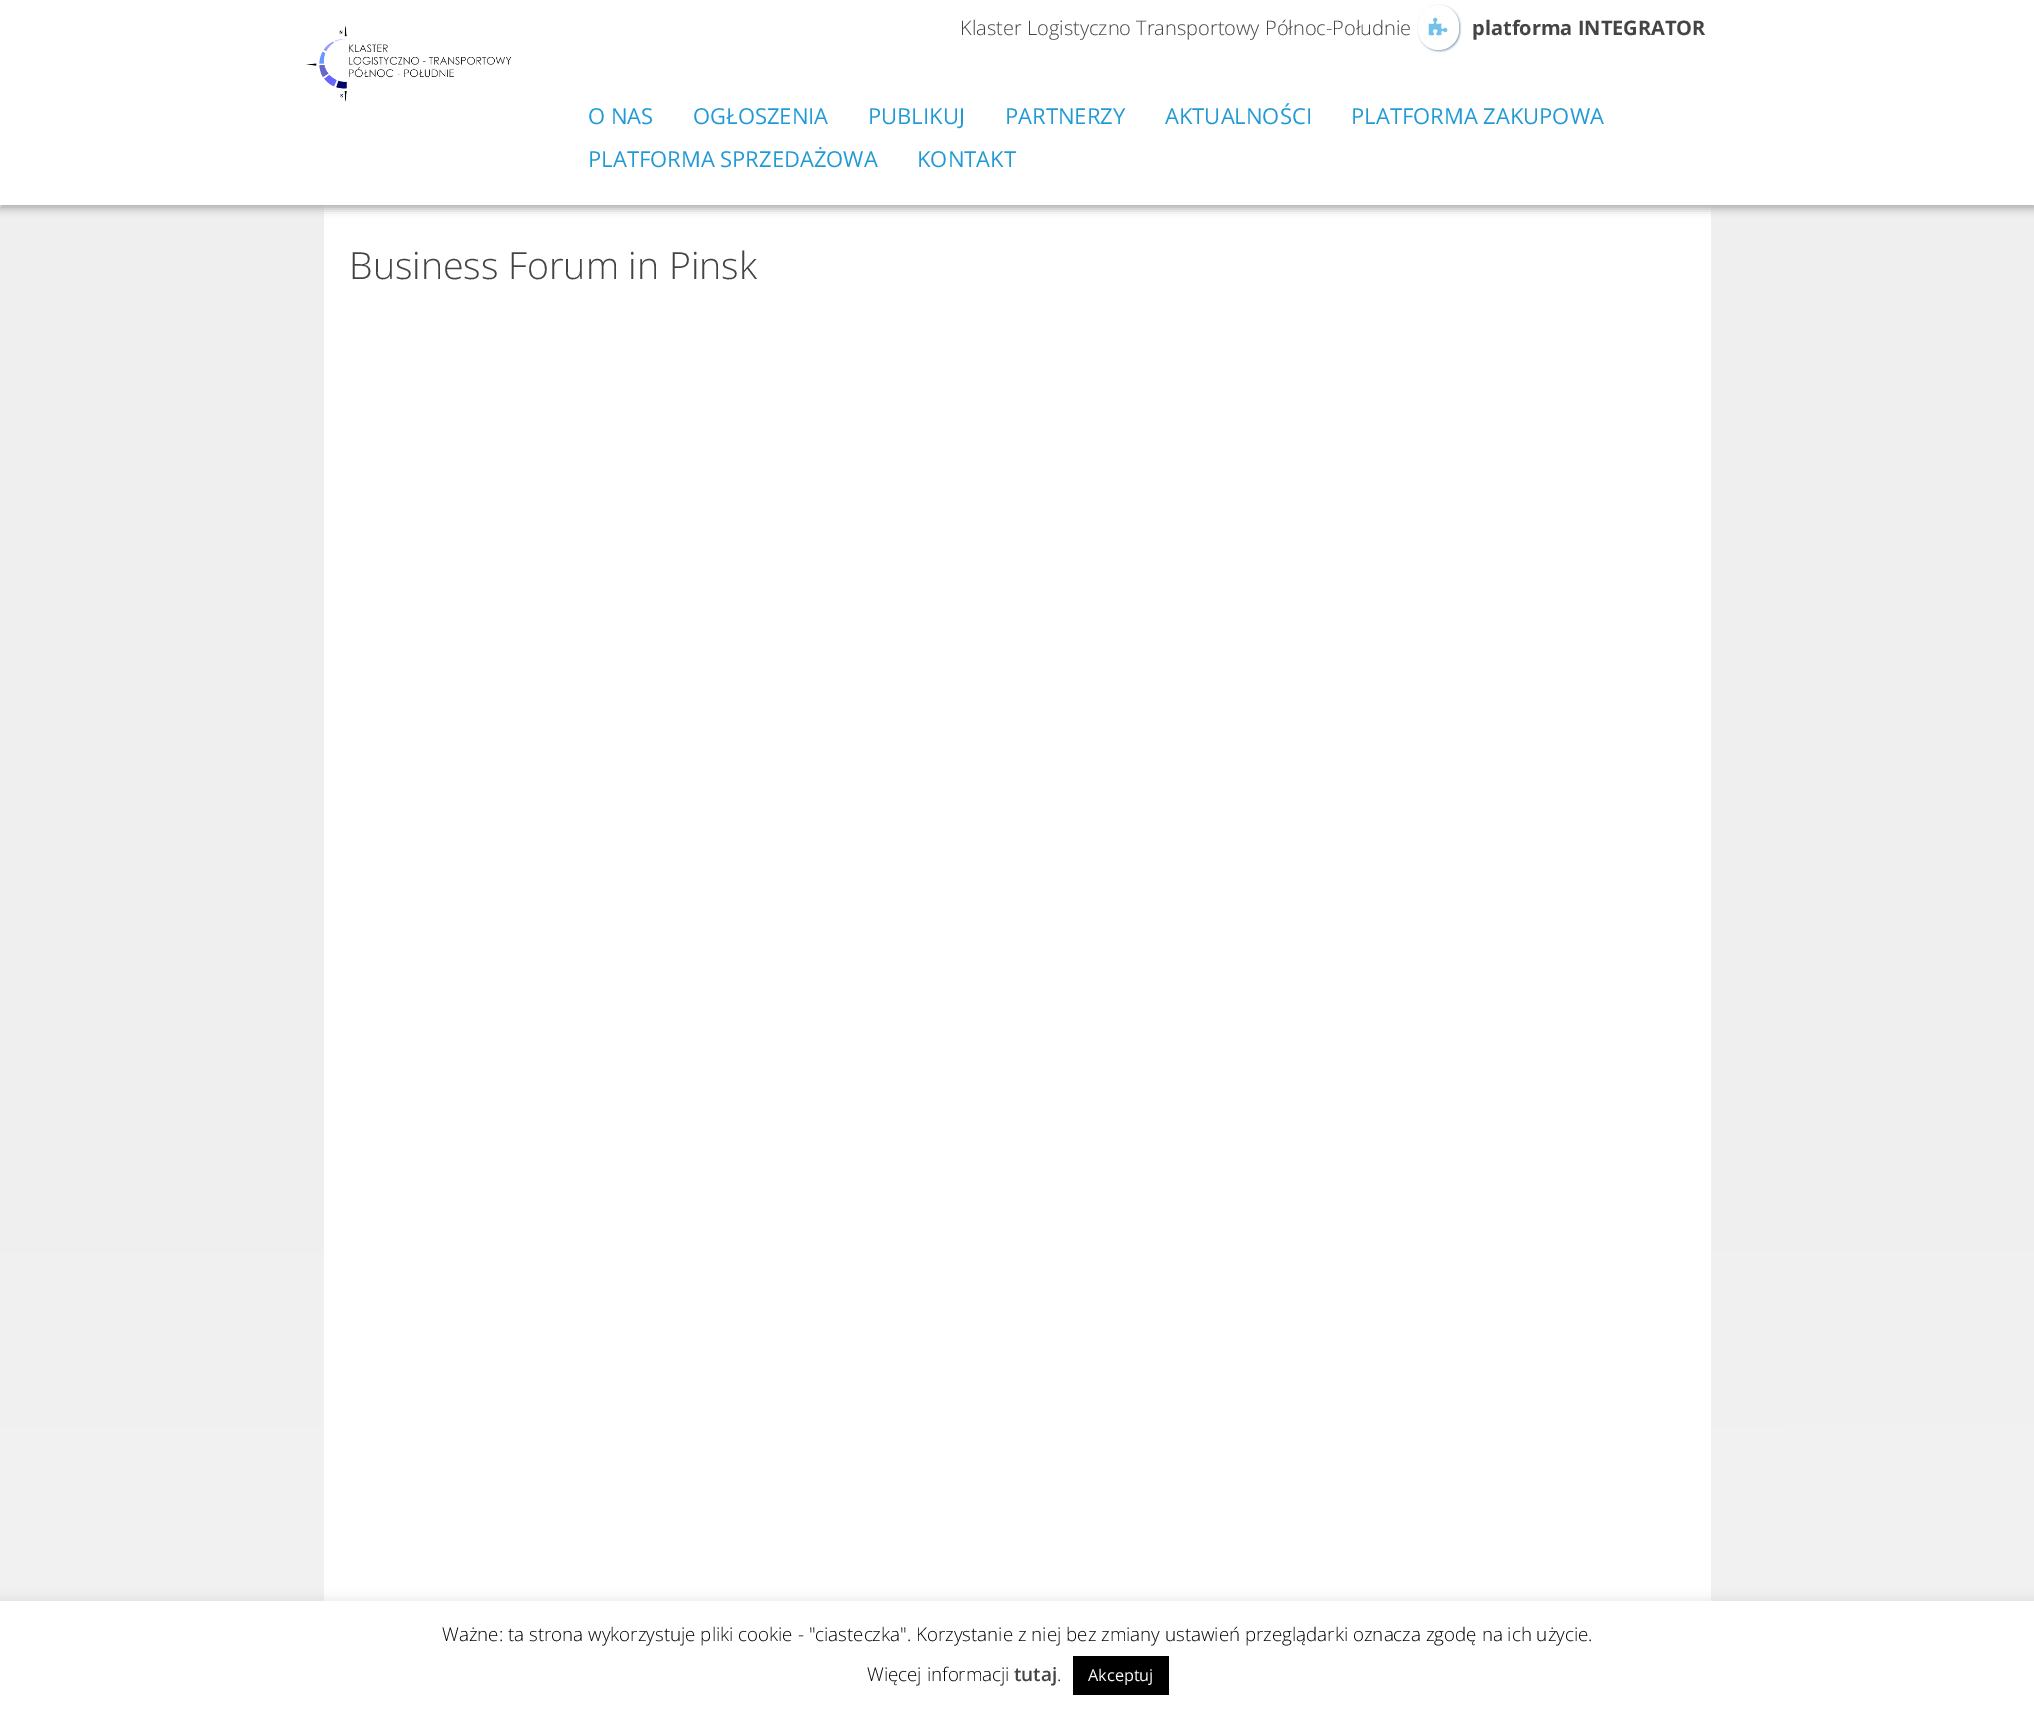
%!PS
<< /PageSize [2034 1710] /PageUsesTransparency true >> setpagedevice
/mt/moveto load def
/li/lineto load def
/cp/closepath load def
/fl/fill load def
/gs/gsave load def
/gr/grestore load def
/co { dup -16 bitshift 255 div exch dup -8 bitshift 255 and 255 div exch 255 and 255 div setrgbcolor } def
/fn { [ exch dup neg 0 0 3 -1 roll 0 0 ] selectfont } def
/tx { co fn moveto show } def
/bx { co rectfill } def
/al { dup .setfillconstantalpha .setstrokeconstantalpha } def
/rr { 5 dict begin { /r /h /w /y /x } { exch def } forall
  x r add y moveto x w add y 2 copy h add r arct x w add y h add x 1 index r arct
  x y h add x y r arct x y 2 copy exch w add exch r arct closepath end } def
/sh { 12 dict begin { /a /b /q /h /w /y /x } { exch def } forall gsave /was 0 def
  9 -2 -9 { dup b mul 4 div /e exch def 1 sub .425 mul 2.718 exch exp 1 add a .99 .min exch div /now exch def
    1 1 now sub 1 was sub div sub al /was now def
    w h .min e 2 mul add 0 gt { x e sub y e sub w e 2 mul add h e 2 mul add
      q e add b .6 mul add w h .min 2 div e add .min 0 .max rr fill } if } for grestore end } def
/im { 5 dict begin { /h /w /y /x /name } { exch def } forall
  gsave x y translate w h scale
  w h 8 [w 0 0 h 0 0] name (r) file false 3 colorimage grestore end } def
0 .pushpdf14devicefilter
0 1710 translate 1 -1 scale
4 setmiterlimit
0 0 2034 1710 16#FFFFFF bx
gs 0 205 mt 2034 205 li 2034 1601 li 0 1601 li cp clip newpath
<< /ShadingType 2 /ColorSpace /DeviceRGB /Coords [1017 0 1018 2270] /Extend [true true] /Function << /FunctionType 3 /Domain [0 1] /Functions [<< /FunctionType 2 /Domain [0 1] /C0 [.937 .937 .937] /C1 [.937 .937 .937] /N 1 >> << /FunctionType 2 /Domain [0 1] /C0 [.937 .937 .937] /C1 [.969 .969 .969] /N 1 >>] /Bounds [.5] /Encode [0 1 0 1] >> >> shfill gr
324 205 1387 1396 16#FFFFFF bx
16#ADADAD co
0 4 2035 205 0 4 1 sh
0 0 2034 205 16#FFFFFF bx
(media/1.raw) 306 25 206 77 im
16#889CB8 co
1419 6 41 45 20.5 1 1 sh
16#FFFFFF co
1418 5 41 45 20.5 rr fl
(media/2.raw) 1428 17 20 19 im
16#ACABAB co
0 1600 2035 109 0 6 .3 sh
0 1601 2034 109 16#FFFFFF bx
1073 1656 96 39 16#000000 bx
(Klaster Logistyczno Transportowy Północ-Południe) 960 35 /OpenSans-Light 20 16#444444 tx
(platforma INTEGRATOR) 1472 35 /OpenSans-Bold 20 16#444444 tx
(O NAS) 588 124 /OpenSans-Regular 22 16#1F9AD6 tx
(OGŁOSZENIA) 693 124 /OpenSans-Regular 22 16#1F9AD6 tx
(PUBLIKUJ) 868 124 /OpenSans-Regular 22 16#1F9AD6 tx
(PARTNERZY) 1005 124 /OpenSans-Regular 22 16#1F9AD6 tx
(AKTUALNOŚCI) 1165 124 /OpenSans-Regular 22 16#1F9AD6 tx
(PLATFORMA ZAKUPOWA) 1351 124 /OpenSans-Regular 22 16#1F9AD6 tx
(PLATFORMA SPRZEDAŻOWA) 588 167 /OpenSans-Regular 22 16#1F9AD6 tx
(KONTAKT) 917 167 /OpenSans-Regular 22 16#1F9AD6 tx
(Business Forum in Pinsk) 349 279 /OpenSans-Light 37.5 16#444444 tx
(Ważne: ta strona wykorzystuje pliki cookie - "ciasteczka". Korzystanie z niej bez zmiany ustawień przeglądarki oznacza zgodę na ich użycie.) 442 1641 /OpenSans-Light 18.75 16#000000 tx
(Więcej informacji) 867 1681 /OpenSans-Light 18.75 16#000000 tx
(tutaj) 1014 1681 /OpenSans-SemiBold 18.75 16#444444 tx
(.) 1057 1681 /OpenSans-Light 18.75 16#000000 tx
(Akceptuj) 1088 1681 /OpenSans-Regular 16.25 16#FFFFFF tx
.poppdf14devicefilter showpage
